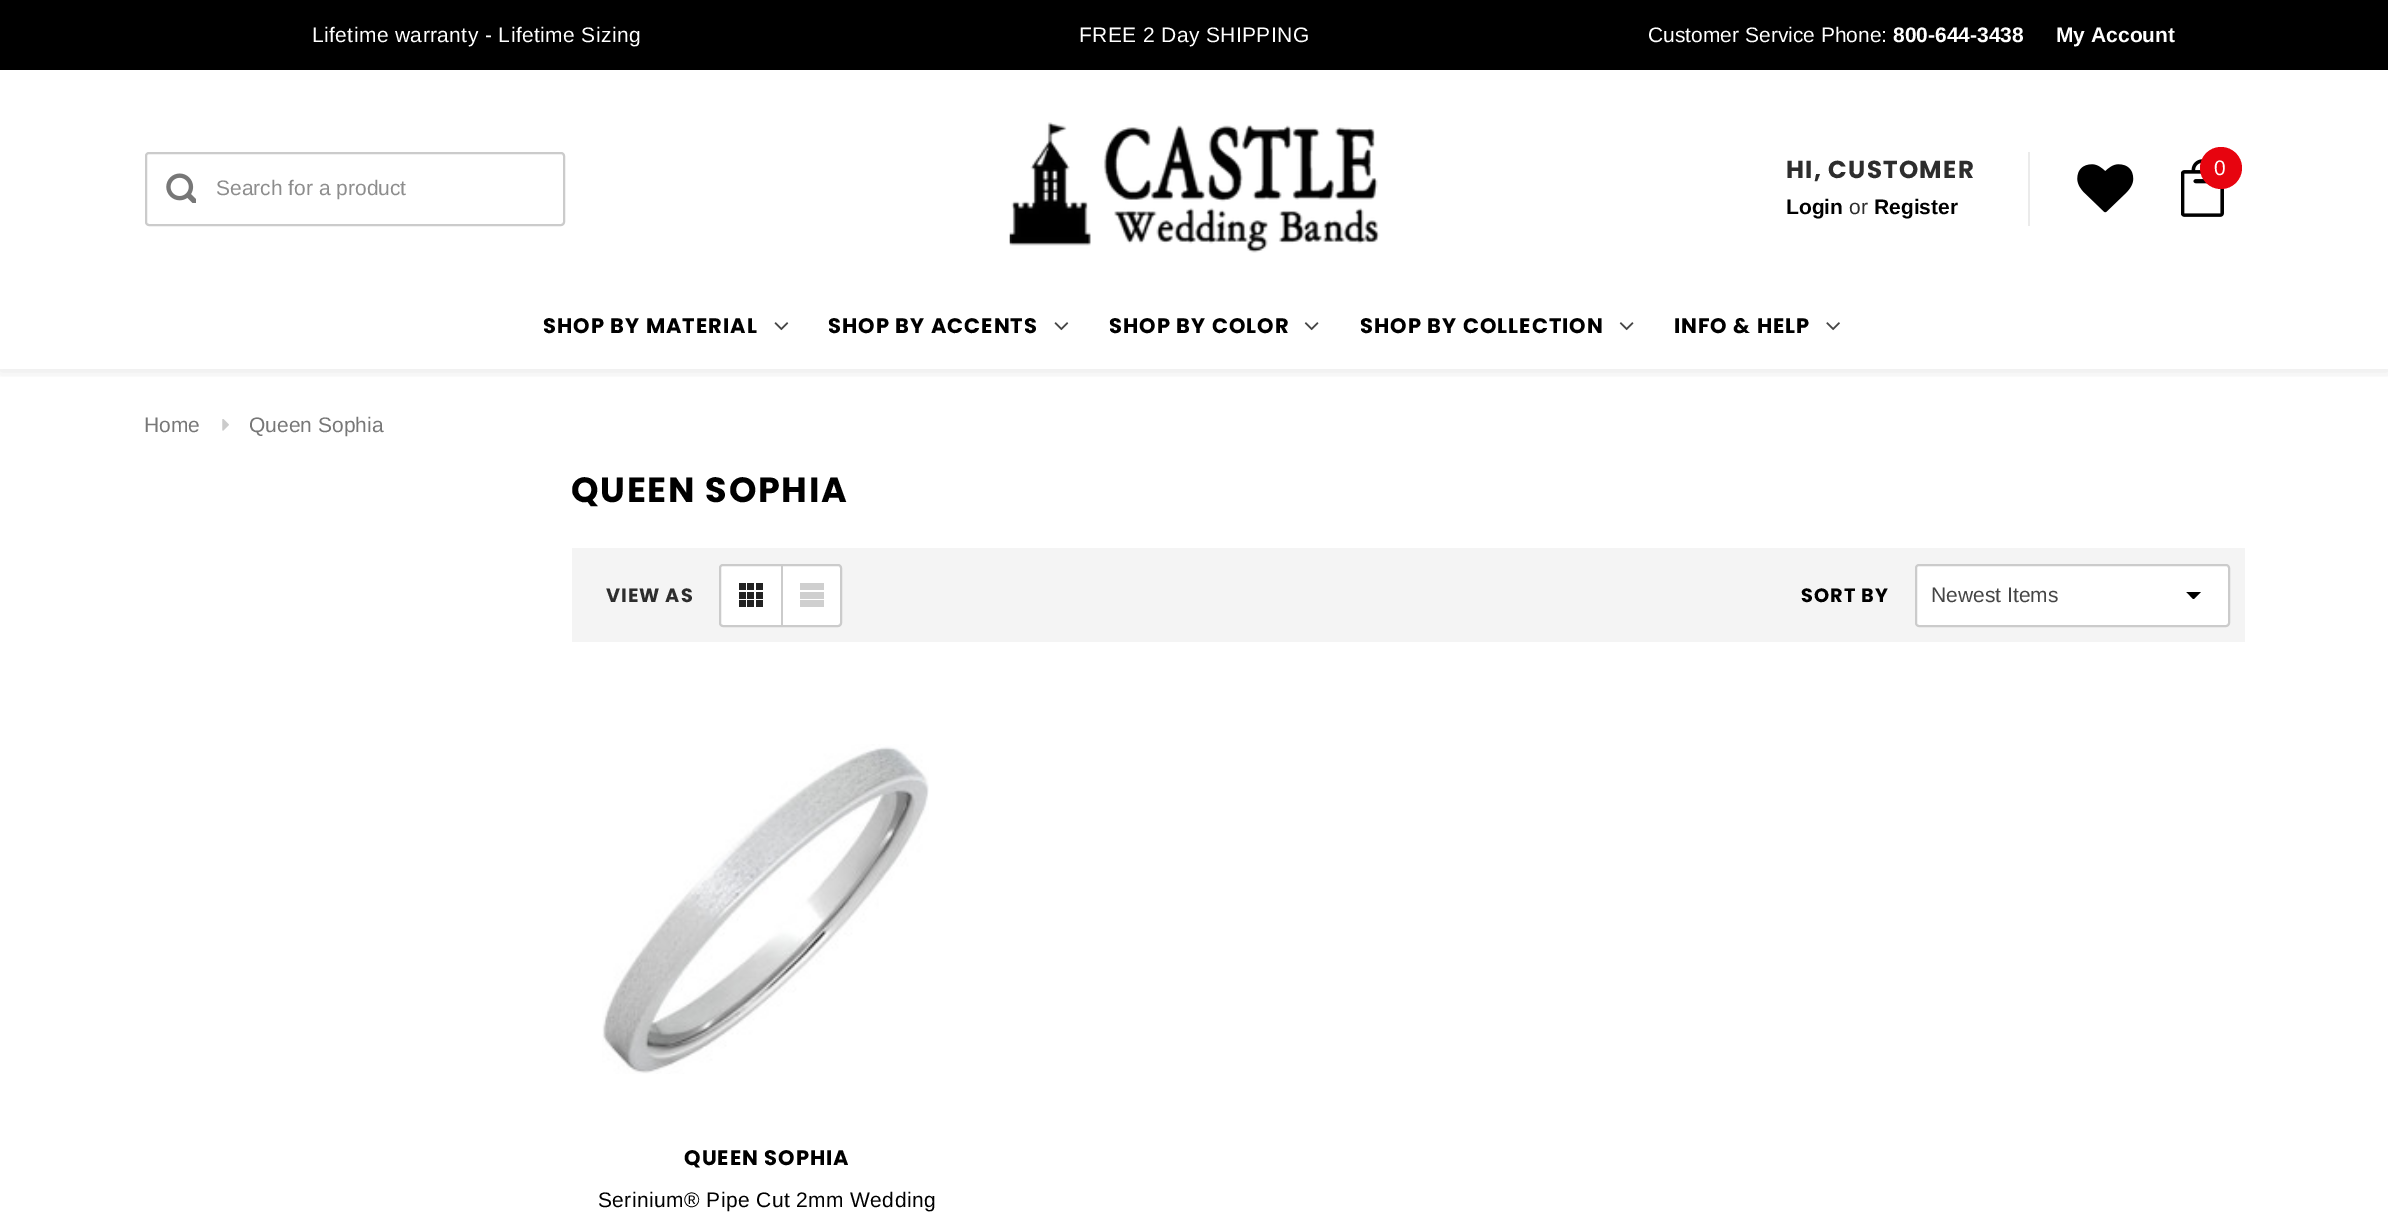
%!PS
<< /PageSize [2388 1220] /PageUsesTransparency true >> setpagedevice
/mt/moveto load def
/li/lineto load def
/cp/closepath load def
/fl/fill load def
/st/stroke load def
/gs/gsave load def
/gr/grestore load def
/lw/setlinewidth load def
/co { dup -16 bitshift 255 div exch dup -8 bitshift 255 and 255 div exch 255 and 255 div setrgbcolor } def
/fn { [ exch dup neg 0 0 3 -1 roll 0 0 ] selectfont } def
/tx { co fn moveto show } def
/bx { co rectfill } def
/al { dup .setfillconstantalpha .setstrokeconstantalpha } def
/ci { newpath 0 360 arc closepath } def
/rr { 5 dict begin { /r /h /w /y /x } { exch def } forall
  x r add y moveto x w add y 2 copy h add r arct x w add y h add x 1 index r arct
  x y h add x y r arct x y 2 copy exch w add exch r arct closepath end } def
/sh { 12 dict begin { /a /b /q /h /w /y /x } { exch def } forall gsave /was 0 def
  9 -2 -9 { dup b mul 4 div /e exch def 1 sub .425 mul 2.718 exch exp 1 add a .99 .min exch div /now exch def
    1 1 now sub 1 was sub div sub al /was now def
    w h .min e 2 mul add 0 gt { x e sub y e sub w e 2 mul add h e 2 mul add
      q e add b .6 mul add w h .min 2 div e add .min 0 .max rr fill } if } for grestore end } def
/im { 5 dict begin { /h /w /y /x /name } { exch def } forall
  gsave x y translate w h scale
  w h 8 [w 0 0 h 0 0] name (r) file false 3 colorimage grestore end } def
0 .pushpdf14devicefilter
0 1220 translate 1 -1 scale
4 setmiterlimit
0 0 2388 1220 16#FFFFFF bx
gs
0 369 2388 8 rectclip
16#000000 co
0 2 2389 369 0 7 .1 sh
gr
0 0 2388 70 16#000000 bx
16#CBCBCB co
2 lw
146 153 418 72 3 rr st
(media/1.raw) 166 173 30 30 im
(media/2.raw) 1009 122 371 131 im
2028 152 2 74 16#EBEBEB bx
(media/3.raw) 2077 164 57 49 im
(media/4.raw) 2181 159 43 58 im
16#E7040F co
2221 168 21 ci fl
(media/5.raw) 774 322 15 9 im
(media/5.raw) 1054 322 15 9 im
(media/6.raw) 1304 322 15 9 im
(media/6.raw) 1619 322 15 9 im
(media/7.raw) 1826 322 14 9 im
(media/8.raw) 222 419 7 12 im
572 548 1673 94 16#F4F4F4 bx
16#FFFFFF co
720 565 121 61 3 rr gs fl gr
16#CBCBCB co
st
747 583 7 7 16#232323 bx
739 583 7 7 16#232323 bx
756 583 7 7 16#232323 bx
747 592 7 7 16#232323 bx
739 592 7 7 16#232323 bx
756 592 7 7 16#232323 bx
747 600 7 7 16#232323 bx
739 600 7 7 16#232323 bx
756 600 7 7 16#232323 bx
781 565 2 60 16#CBCBCB bx
800 583 24 7 16#CFCFCF bx
800 592 24 7 16#CFCFCF bx
800 600 24 7 16#CFCFCF bx
16#FFFFFF co
1915 564 315 63 4 rr fl
gs
2186 592 16 7 rectclip
16#000000 co
2186 591.5 mt 2193.5 599.5 li 2201.5 591.5 li cp fl
gr
16#CBCBCB co
1916 565 313 61 3 rr st
(media/9.raw) 602 744 327 330 im
/Arimo-Regular 21 fn
16#FFFFFF co
312 42 mt .4 0 (Lifetime warranty - Lifetime Sizing) ashow
1079 42 mt .4 0 (FREE 2 Day SHIPPING) ashow
(Customer Service Phone:) 1648 42 /Arimo-Regular 21 16#FFFFFF tx
(800-644-3438) 1893 42 /Arimo-Bold 21 16#FFFFFF tx
(My Account) 2056 42 /Arimo-Bold 21 16#FFFFFF tx
(Search for a product) 216 195 /Arimo-Regular 21 16#8D8D8D tx
/Poppins-Bold 24.5 fn
16#2D2D2D co
1786 178 mt 1.25 0 (HI, CUSTOMER) ashow
(Login) 1786 214 /Arimo-Bold 21 16#000000 tx
(or) 1849 214 /Arimo-Regular 21 16#2D2D2D tx
(Register) 1874 214 /Arimo-Bold 21 16#000000 tx
(0) 2214 175 /Arimo-Regular 21 16#FFFFFF tx
/Poppins-Bold 21 fn
16#000000 co
543 333 mt 1 0 (SHOP BY MATERIAL) ashow
828 333 mt 1 0 (SHOP BY ACCENTS) ashow
1109 333 mt 1 0 (SHOP BY COLOR) ashow
1360 333 mt 1 0 (SHOP BY COLLECTION) ashow
1674 333 mt 1 0 (INFO & HELP) ashow
(Home) 144 432 /Arimo-Regular 21 16#777777 tx
(Queen Sophia) 249 432 /Arimo-Regular 21 16#777777 tx
/Poppins-Bold 35 fn
16#000000 co
571 502 mt 1.75 0 (QUEEN SOPHIA) ashow
/Poppins-Bold 19.25 fn
16#2D2D2D co
606 602 mt 1 0 (VIEW AS) ashow
16#000000 co
1801 602 mt 1 0 (SORT BY) ashow
(Newest Items) 1931 602 /Arimo-Regular 21 16#454545 tx
/Poppins-Bold 21 fn
16#000000 co
684 1165 mt 1 0 (QUEEN SOPHIA) ashow
/Arimo-Regular 21 fn
598 1207 mt .4 0 (Serinium® Pipe Cut 2mm Wedding) ashow
.poppdf14devicefilter showpage
